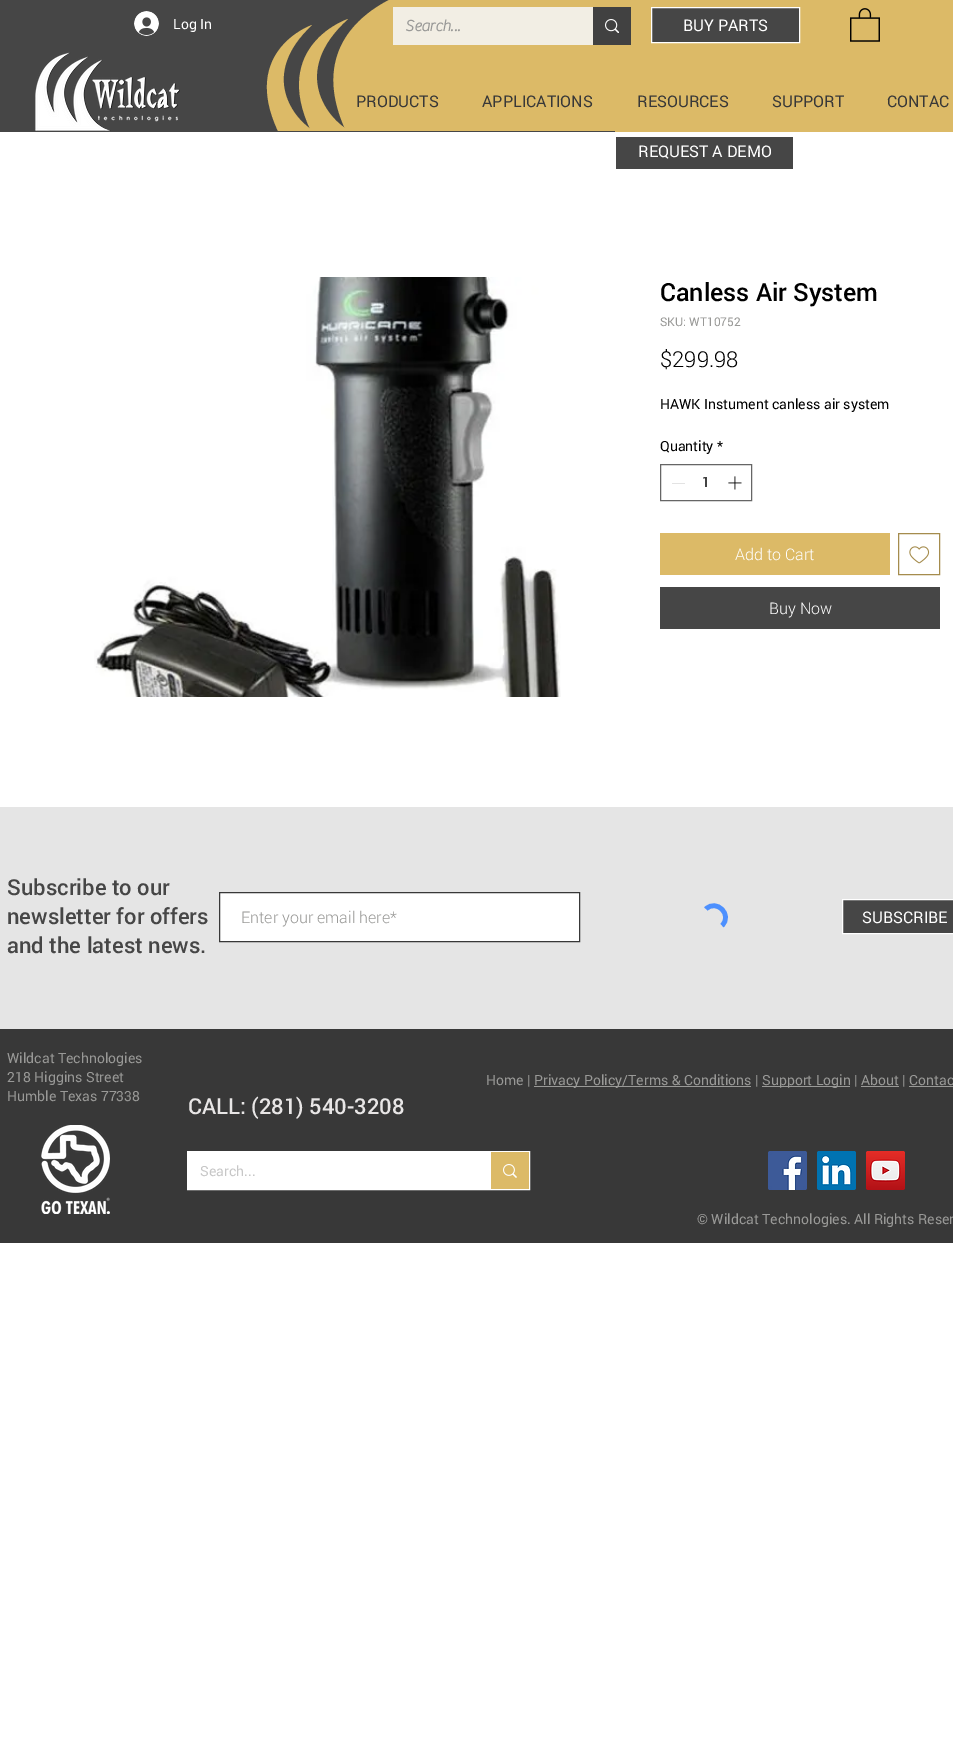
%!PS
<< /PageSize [953 1743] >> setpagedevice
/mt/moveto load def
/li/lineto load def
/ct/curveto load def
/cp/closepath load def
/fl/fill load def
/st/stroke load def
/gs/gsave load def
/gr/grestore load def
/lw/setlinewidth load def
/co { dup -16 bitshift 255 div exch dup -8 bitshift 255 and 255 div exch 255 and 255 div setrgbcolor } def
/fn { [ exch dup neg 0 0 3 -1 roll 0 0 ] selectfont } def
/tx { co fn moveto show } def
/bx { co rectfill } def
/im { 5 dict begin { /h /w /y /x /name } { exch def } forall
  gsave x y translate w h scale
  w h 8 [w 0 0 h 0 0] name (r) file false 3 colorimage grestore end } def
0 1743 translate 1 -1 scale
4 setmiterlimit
0 0 953 1743 16#FFFFFF bx
0 0 615 132 16#464646 bx
(media/1.raw) 134 11 25 25 im
16#DCBA67 co
312 25 mt 312 25 240 50 278 131 ct 314 131 li 294 120 258 75 312 25 ct cp fl
348 19 mt 348 19 270 45 311 131 ct 350 131 li 328 120 289 72 348 19 ct cp fl
389 0 mt 360 15 310 53 346 131 ct 657 131 li 657 0 li cp fl
393 7 200 38 16#F2EEE4 bx
615 0 338 132 16#DCBA67 bx
593 7 38 38 16#414141 bx
(media/2.raw) 605 19 14 14 im
16#464646 co
651.5 7.5 mt 799.5 7.5 li 799.5 42.5 li 651.5 42.5 li cp gs fl gr
16#FFFFFF co
st
(media/3.raw) 850 8 30 34 im
(media/4.raw) 35 52 145 80 im
616 137 177 32 16#464646 bx
(media/5.raw) 94 277 467 420 im
16#666666 co
660.5 464.5 91 36 rectstroke
672 483 13 1 16#E3E3E3 bx
(media/6.raw) 728 476 14 14 im
660 533 230 42 16#DCBA67 bx
16#A58C4D co
898.5 533.5 41 41 rectstroke
(media/7.raw) 909 546 21 18 im
660 587 280 42 16#464646 bx
0 807 953 222 16#E5E5E5 bx
16#FFFFFF co
219.5 892.5 mt 579.5 892.5 li 579.5 941.5 li 219.5 941.5 li cp gs fl gr
16#383838 co
st
16#4D90FE co
4.6 lw
706 909 mt 716.5 898.5 733 915 722 925.5 ct st
16#464646 co
842.5 899.5 mt 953.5 899.5 li 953.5 933.5 li 842.5 933.5 li cp gs fl gr
16#FFFFFF co
1 lw
st
0 1029 953 214 16#383838 bx
534 1086 217 1 16#999997 bx
762 1086 88 1 16#999997 bx
861 1086 38 1 16#999997 bx
909 1086 44 1 16#999997 bx
(media/8.raw) 41 1125 69 89 im
16#FFFFFF co
187.5 1151.5 342 38 rectstroke
188 1152 303 37 16#FFFFFF bx
491 1152 38 37 16#DCBA67 bx
(media/9.raw) 503 1164 14 14 im
(media/10.raw) 768 1151 39 39 im
(media/11.raw) 817 1151 39 39 im
(media/12.raw) 866 1151 39 39 im
(Log In) 173 29 /Roboto-Regular 14 16#FFFFFF tx
(Search...) 405 31 /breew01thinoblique-Bold 16 16#999997 tx
(BUY PARTS) 683 31 /Roboto-Regular 16 16#FFFFFF tx
(PRODUCTS) 356 107 /Roboto-Regular 16 16#383838 tx
(APPLICATIONS) 482 107 /Roboto-Regular 16 16#383838 tx
(RESOURCES) 637 107 /Roboto-Regular 16 16#383838 tx
(SUPPORT) 772 107 /Roboto-Regular 16 16#383838 tx
(CONTAC) 887 107 /Roboto-Regular 16 16#383838 tx
(REQUEST A DEMO) 638 157 /Roboto-Regular 16 16#FFFFFF tx
(Canless Air System) 660 301 /Roboto-Medium 25 16#000000 tx
(SKU: WT10752) 660 326 /Roboto-Regular 12 16#999997 tx
($299.98) 660 367 /Roboto-Light 22 16#000000 tx
(HAWK Instument canless air system) 660 409 /Roboto-Regular 14 16#000000 tx
(Quantity) 660 451 /Roboto-Regular 14 16#000000 tx
(*) 717 451 /Roboto-Regular 14 16#000000 tx
(1) 702 487 /Roboto-Regular 14 16#000000 tx
(Add to Cart) 735 560 /Roboto-Light 16 16#FFFFFF tx
(Buy Now) 769 614 /Roboto-Light 16 16#FFFFFF tx
(Subscribe to our) 7 895 /Roboto-Medium 22 16#464646 tx
(newsletter for offers) 7 924 /Roboto-Medium 22 16#464646 tx
(and the latest news.) 7 953 /Roboto-Medium 22 16#464646 tx
(Enter your email here*) 241 923 /Roboto-Light 16 16#999997 tx
(SUBSCRIBE) 862 923 /Roboto-Regular 16 16#FFFFFF tx
(Wildcat Technologies) 7 1063 /Roboto-Regular 14 16#999997 tx
(218 Higgins Street) 7 1082 /Roboto-Regular 14 16#999997 tx
(Humble Texas 77338) 7 1101 /Roboto-Regular 14 16#999997 tx
(Home |) 486 1085 /Roboto-Regular 14 16#999997 tx
(Privacy Policy/Terms & Conditions |) 534 1085 /Roboto-Regular 14 16#999997 tx
(Support Login | About | Contac) 762 1085 /Roboto-Regular 14 16#999997 tx
(CALL: \(281\) 540-3208) 188 1114 /Roboto-Medium 22 16#E8E6E6 tx
(Search...) 200 1176 /Roboto-Regular 14 16#C7C7C7 tx
(© Wildcat Technologies. All Rights Reser) 697 1224 /Roboto-Regular 14 16#999997 tx
showpage
